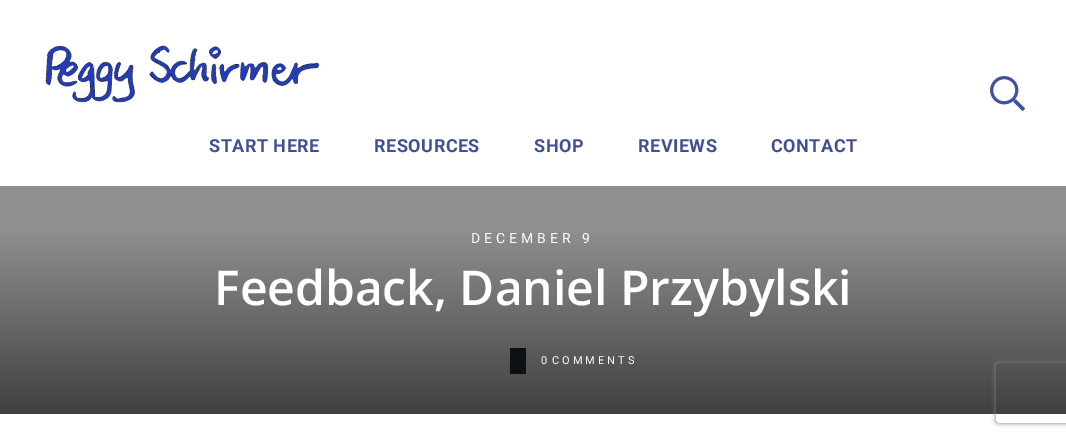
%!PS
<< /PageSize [1066 437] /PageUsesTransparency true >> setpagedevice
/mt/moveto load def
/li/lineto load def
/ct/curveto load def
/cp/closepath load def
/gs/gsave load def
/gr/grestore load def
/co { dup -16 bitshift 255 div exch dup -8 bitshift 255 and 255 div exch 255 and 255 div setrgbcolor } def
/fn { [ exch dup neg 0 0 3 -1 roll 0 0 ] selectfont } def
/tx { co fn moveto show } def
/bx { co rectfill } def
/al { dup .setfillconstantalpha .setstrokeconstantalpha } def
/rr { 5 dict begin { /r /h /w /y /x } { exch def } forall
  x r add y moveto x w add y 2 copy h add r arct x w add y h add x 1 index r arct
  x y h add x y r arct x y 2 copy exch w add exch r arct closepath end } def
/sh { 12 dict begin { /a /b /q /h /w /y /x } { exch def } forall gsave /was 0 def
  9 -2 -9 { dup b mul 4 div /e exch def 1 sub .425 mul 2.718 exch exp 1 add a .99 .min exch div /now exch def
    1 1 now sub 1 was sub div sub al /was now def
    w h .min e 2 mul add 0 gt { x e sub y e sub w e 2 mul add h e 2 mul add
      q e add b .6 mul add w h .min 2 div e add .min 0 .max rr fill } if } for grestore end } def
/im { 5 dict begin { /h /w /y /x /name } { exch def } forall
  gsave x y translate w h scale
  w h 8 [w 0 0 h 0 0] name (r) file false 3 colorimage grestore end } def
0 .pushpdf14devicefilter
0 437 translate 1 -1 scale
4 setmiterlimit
0 0 1066 437 16#FFFFFF bx
(media/1.raw) 45 45 275 58 im
(media/2.raw) 990 76 35 35 im
gs 0 186 mt 1066 186 li 1066 414 li 0 414 li cp clip newpath
<< /ShadingType 2 /ColorSpace /DeviceRGB /Coords [533 186 533 414] /Extend [true true] /Function << /FunctionType 3 /Domain [0 1] /Functions [<< /FunctionType 2 /Domain [0 1] /C0 [.561 .561 .561] /C1 [.561 .561 .561] /N 1 >> << /FunctionType 2 /Domain [0 1] /C0 [.561 .561 .561] /C1 [.251 .251 .251] /N 1 >>] /Bounds [.19] /Encode [0 1 0 1] >> >> shfill gr
510 348 16 26 16#0C1115 bx
gs
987 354 mt 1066 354 li 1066 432 li 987 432 li cp 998 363 mt 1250 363 li 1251 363 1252 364 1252 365 ct 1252 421 li 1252 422 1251 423 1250 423 ct 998 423 li 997 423 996 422 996 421 ct 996 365 li 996 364 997 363 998 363 ct cp eoclip newpath
16#808080 co
996 363 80 60 2 2.5 1 sh
gr
/Roboto-Bold 18 fn
16#404E92 co
209 152 mt .5 0 (START HERE) ashow
374 152 mt .5 0 (RESOURCES) ashow
534 152 mt .5 0 (SHOP) ashow
638 152 mt .5 0 (REVIEWS) ashow
771 152 mt .5 0 (CONTACT) ashow
/Roboto-Regular 14 fn
16#FFFFFF co
471 243 mt 4 0 (DECEMBER 9) ashow
(Feedback, Daniel Przybylski) 214 305 /OpenSans-SemiBold 48 16#FFFFFF tx
(0) 541 364 /Roboto-Regular 11 16#FFFFFF tx
552 364 mt 3 0 (COMMENTS) ashow
.poppdf14devicefilter showpage
